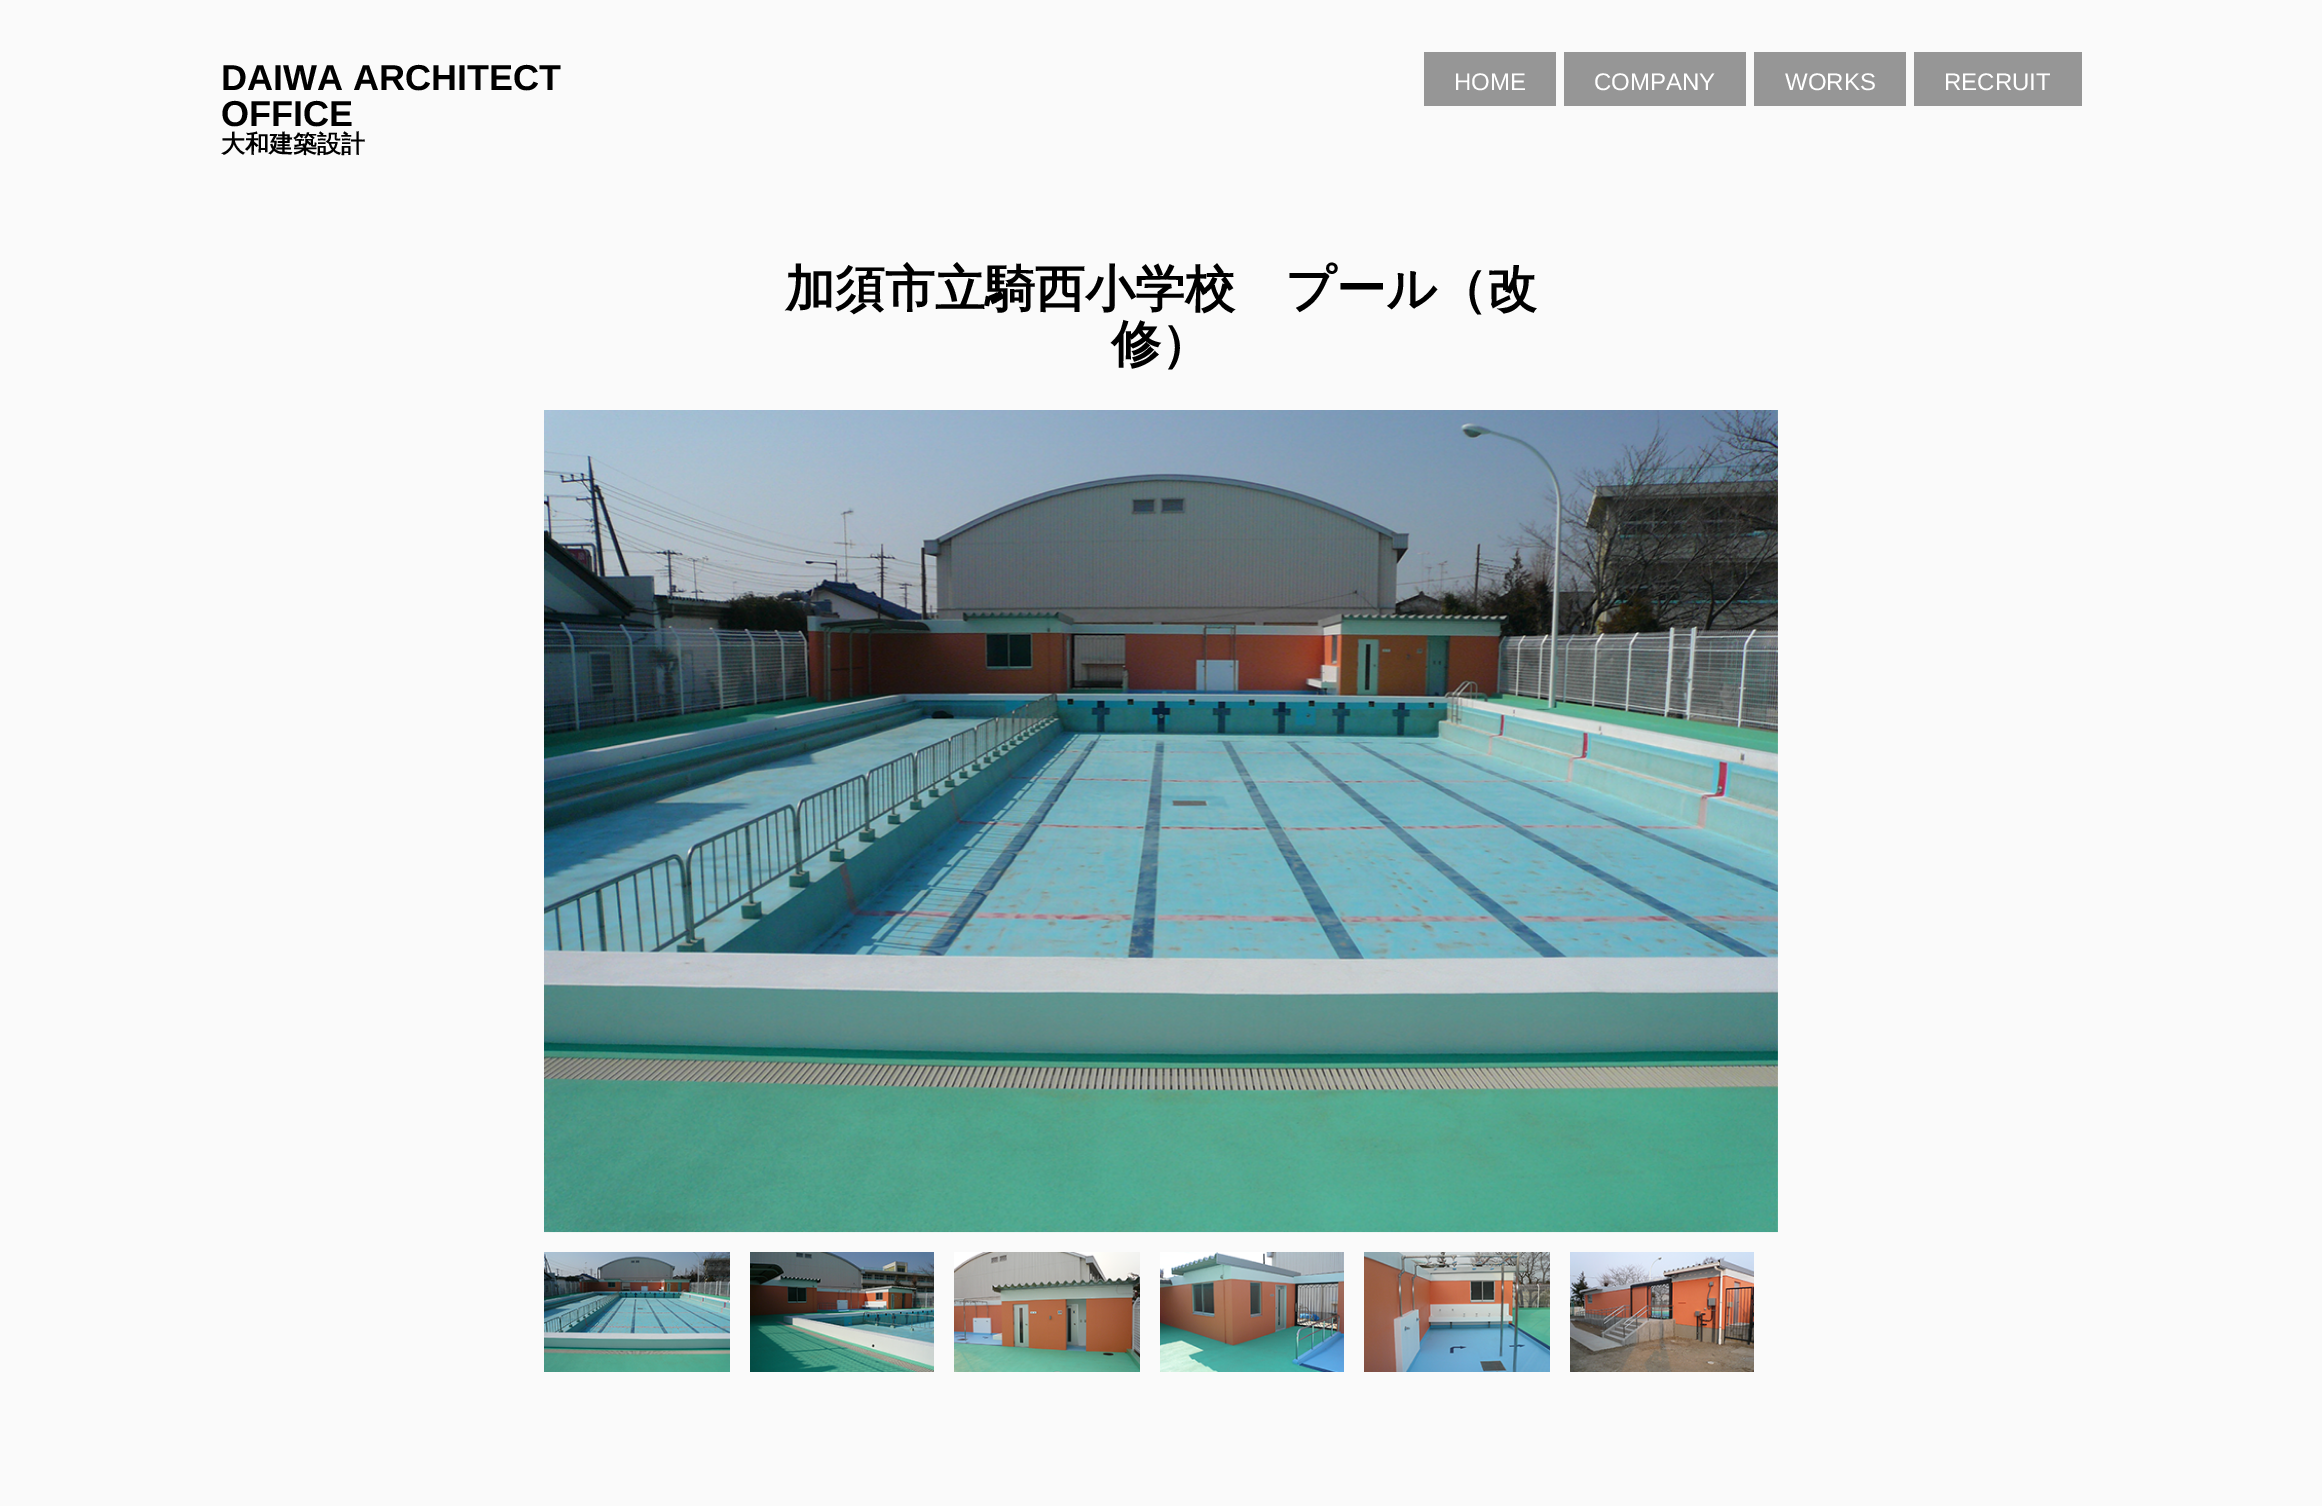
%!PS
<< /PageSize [2322 1506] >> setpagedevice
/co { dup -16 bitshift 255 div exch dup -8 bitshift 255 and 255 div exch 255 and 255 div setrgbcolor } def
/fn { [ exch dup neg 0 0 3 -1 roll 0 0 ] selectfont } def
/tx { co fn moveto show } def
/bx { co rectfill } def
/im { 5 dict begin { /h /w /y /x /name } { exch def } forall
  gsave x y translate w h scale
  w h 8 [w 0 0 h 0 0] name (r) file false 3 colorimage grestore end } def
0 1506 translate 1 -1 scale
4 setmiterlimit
0 0 2322 1506 16#FAFAFA bx
1424 52 132 54 16#969696 bx
1564 52 182 54 16#969696 bx
1754 52 152 54 16#969696 bx
1914 52 168 54 16#969696 bx
(media/1.raw) 544 410 1234 823 im
(media/2.raw) 544 1252 186 120 im
(media/3.raw) 750 1252 184 120 im
(media/4.raw) 954 1252 186 120 im
(media/5.raw) 1160 1252 184 120 im
(media/6.raw) 1364 1252 186 120 im
(media/7.raw) 1570 1252 184 120 im
(DAIWA ARCHITECT) 221 90 /LiberationSans-Bold 36 16#000000 tx
(OFFICE) 221 126 /LiberationSans-Bold 36 16#000000 tx
(大和建築設計) 221 152 /WenQuanYiZenHei-Bold 24 16#000000 tx
(HOME) 1454 90 /LiberationSans-Regular 24 16#FFFFFF tx
(COMPANY) 1594 90 /LiberationSans-Regular 24 16#FFFFFF tx
(WORKS) 1785 90 /LiberationSans-Regular 24 16#FFFFFF tx
(RECRUIT) 1944 90 /LiberationSans-Regular 24 16#FFFFFF tx
(加須市立騎西小学校　プール（改) 785 306 /WenQuanYiZenHei-Bold 50 16#000000 tx
(修）) 1111 361 /WenQuanYiZenHei-Bold 50 16#000000 tx
showpage
